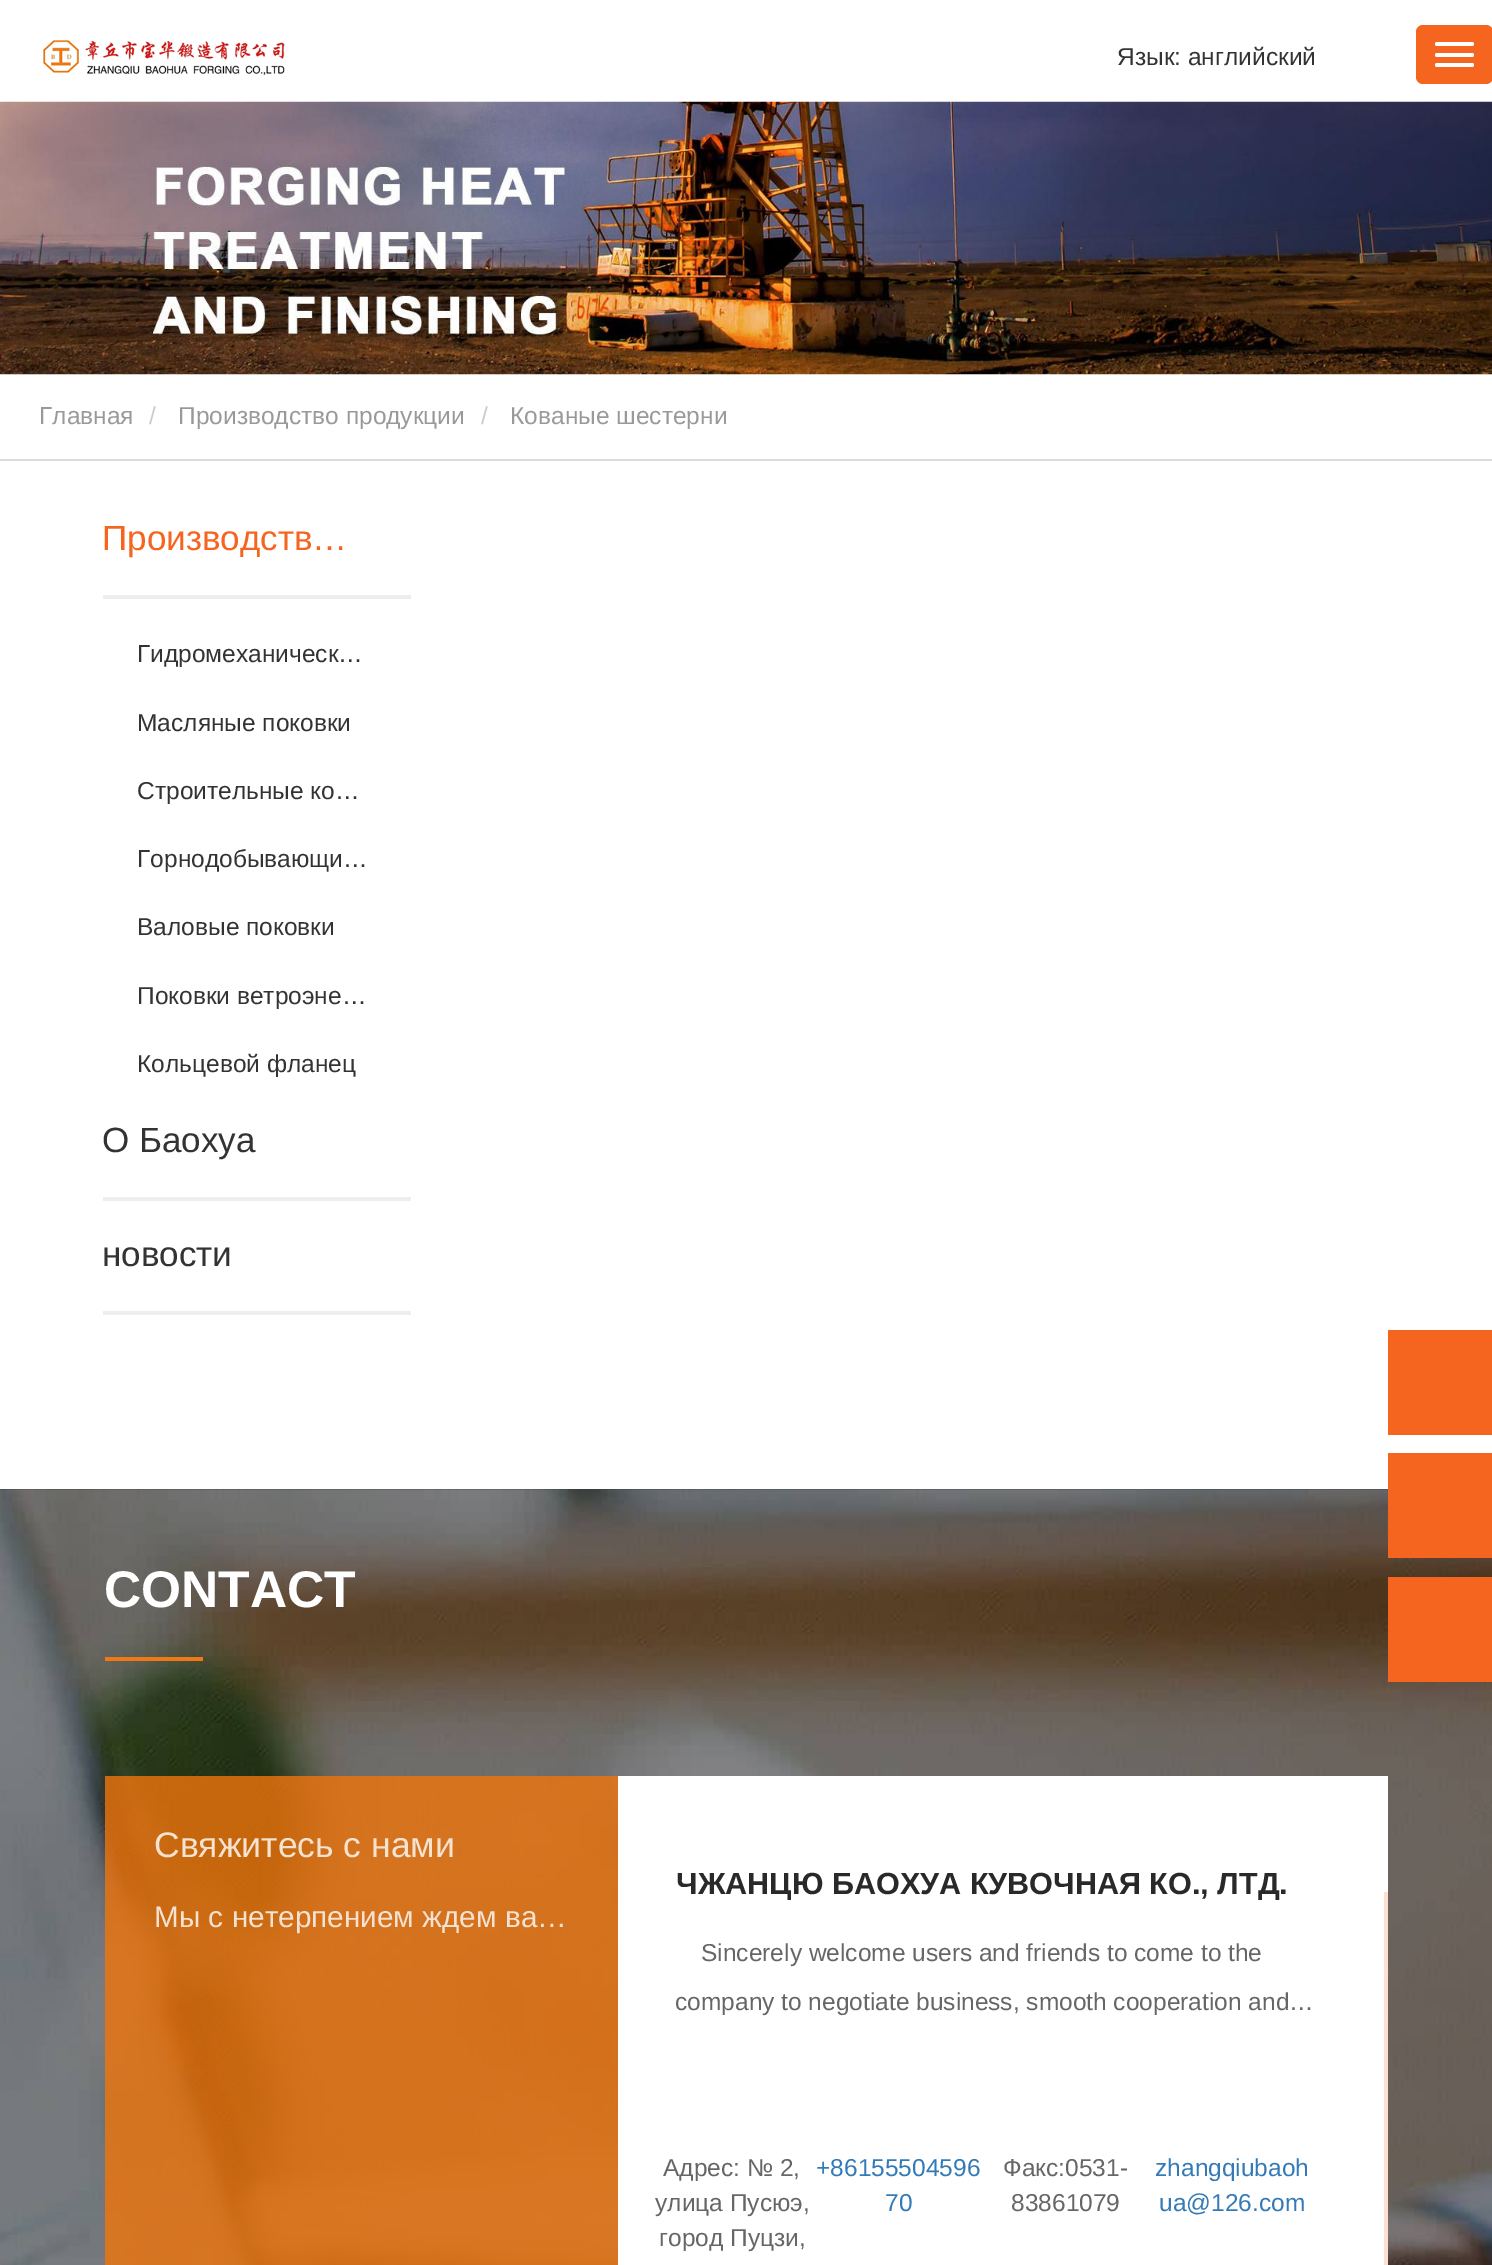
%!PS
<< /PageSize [1492 2265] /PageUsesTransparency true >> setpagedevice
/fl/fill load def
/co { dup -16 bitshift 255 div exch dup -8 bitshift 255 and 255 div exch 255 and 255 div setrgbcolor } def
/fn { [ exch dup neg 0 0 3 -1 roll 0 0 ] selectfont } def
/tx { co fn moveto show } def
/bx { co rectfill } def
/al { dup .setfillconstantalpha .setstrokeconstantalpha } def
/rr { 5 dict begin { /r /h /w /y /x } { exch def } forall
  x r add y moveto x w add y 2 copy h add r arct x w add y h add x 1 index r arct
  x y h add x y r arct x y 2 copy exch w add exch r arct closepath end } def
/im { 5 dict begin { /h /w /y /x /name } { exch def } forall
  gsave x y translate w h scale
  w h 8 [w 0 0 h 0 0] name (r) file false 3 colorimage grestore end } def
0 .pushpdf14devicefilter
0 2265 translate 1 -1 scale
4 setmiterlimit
0 0 1492 2265 16#FFFFFF bx
(media/1.raw) 43 40 242 36 im
16#F66520 co
1416 25 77 59 7 rr fl
16#FFFFFF co
1435 42 39 4 2 rr fl
1435 53 39 4 2 rr fl
1435 63 39 4 2 rr fl
(media/2.raw) 0 101 1492 274 im
0 459 1492 2 16#DDDDDD bx
103 595 308 4 16#EEEEEE bx
103 1197 308 4 16#EEEEEE bx
103 1311 308 4 16#EEEEEE bx
1388 1330 104 105 16#F66520 bx
(media/3.raw) 0 1489 1492 776 im
1388 1453 104 105 16#F66520 bx
1388 1577 104 105 16#F66520 bx
105 1657 98 4 16#F17817 bx
0.8 al
105 1776 513 489 16#EF740C bx
1 al
618 1776 770 489 16#FFFFFF bx
1384 1892 4 373 16#FDE0D2 bx
(Язык: английский) 1117 65 /LiberationSans-Regular 24.5 16#333333 tx
(Главная) 39 424 /LiberationSans-Regular 24.5 16#999999 tx
(/) 149 424 /LiberationSans-Regular 24.5 16#CCCCCC tx
(Производство продукции) 178 424 /LiberationSans-Regular 24.5 16#999999 tx
(/) 481 424 /LiberationSans-Regular 24.5 16#CCCCCC tx
(Кованые шестерни) 510 424 /LiberationSans-Regular 24.5 16#999999 tx
(Производств…) 102 550 /LiberationSans-Regular 35 16#F66520 tx
(Гидромеханическ…) 137 662 /LiberationSans-Regular 24.5 16#333333 tx
(Масляные поковки) 137 731 /LiberationSans-Regular 24.5 16#333333 tx
(Строительные ко…) 137 799 /LiberationSans-Regular 24.5 16#333333 tx
(Горнодобывающи…) 137 867 /LiberationSans-Regular 24.5 16#333333 tx
(Валовые поковки) 137 935 /LiberationSans-Regular 24.5 16#333333 tx
(Поковки ветроэне…) 137 1004 /LiberationSans-Regular 24.5 16#333333 tx
(Кольцевой фланец) 137 1072 /LiberationSans-Regular 24.5 16#333333 tx
(О Баохуа) 102 1152 /LiberationSans-Regular 35 16#333333 tx
(новости) 102 1266 /LiberationSans-Regular 35 16#333333 tx
(CONTACT) 104 1607 /LiberationSans-Bold 51.5 16#FFFFFF tx
(Свяжитесь с нами) 154 1857 /LiberationSans-Regular 35.5 16#F5E2D0 tx
(Мы с нетерпением ждем ва…) 154 1927 /LiberationSans-Regular 29.75 16#F5E2D0 tx
(ЧЖАНЦЮ БАОХУА КУВОЧНАЯ КО., ЛТД.) 676 1894 /LiberationSans-Bold 30.6 16#292929 tx
(Sincerely welcome users and friends to come to the) 701 1961 /LiberationSans-Regular 24.5 16#666666 tx
(company to negotiate business, smooth cooperation and…) 675 2010 /LiberationSans-Regular 24.5 16#666666 tx
(Адрес: № 2,) 663 2176 /LiberationSans-Regular 24.5 16#666666 tx
(улица Пусюэ,) 655 2211 /LiberationSans-Regular 24.5 16#666666 tx
(город Пуцзи,) 659 2246 /LiberationSans-Regular 24.5 16#666666 tx
(+86155504596) 816 2176 /LiberationSans-Regular 24.5 16#337AB7 tx
(70) 885 2211 /LiberationSans-Regular 24.5 16#337AB7 tx
(Факс:0531-) 1003 2176 /LiberationSans-Regular 24.5 16#666666 tx
(83861079) 1011 2211 /LiberationSans-Regular 24.5 16#666666 tx
(zhangqiubaoh) 1155 2176 /LiberationSans-Regular 24.5 16#337AB7 tx
(ua@126.com) 1159 2211 /LiberationSans-Regular 24.5 16#337AB7 tx
.poppdf14devicefilter showpage
